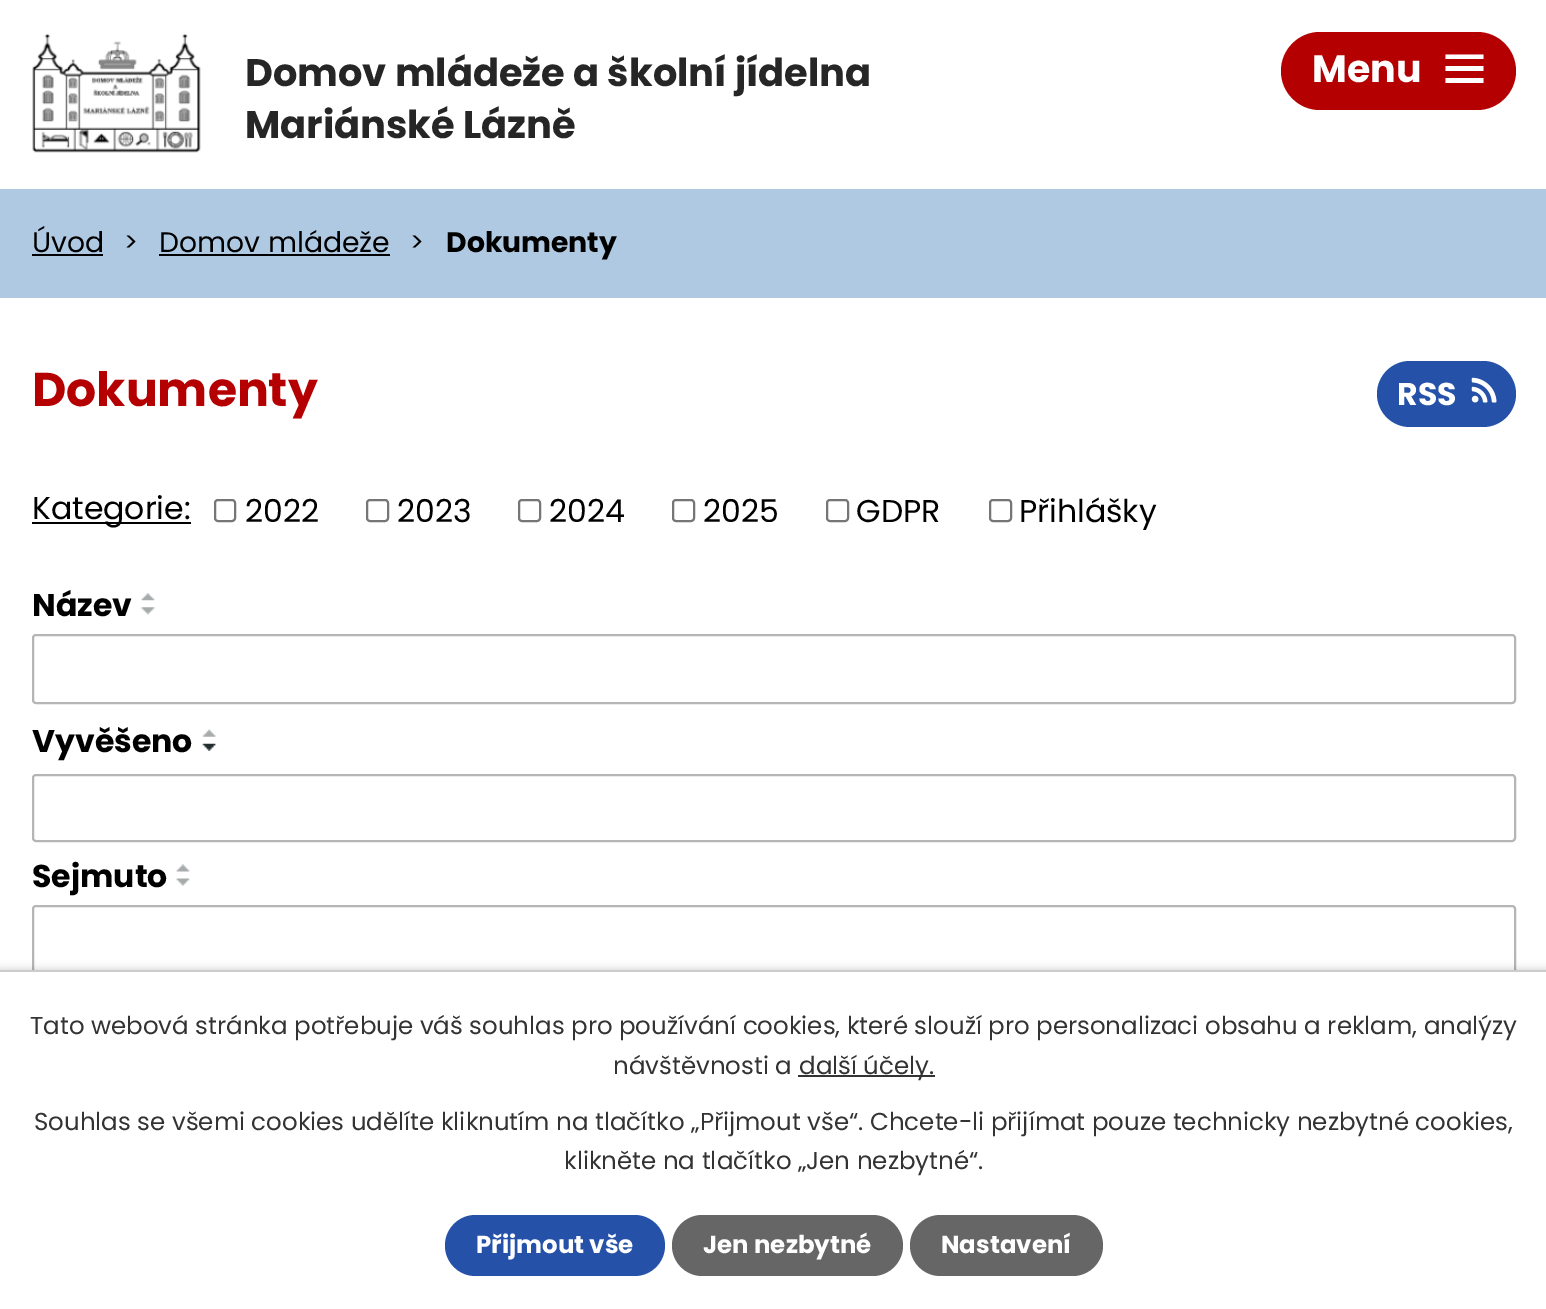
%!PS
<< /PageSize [1546 1309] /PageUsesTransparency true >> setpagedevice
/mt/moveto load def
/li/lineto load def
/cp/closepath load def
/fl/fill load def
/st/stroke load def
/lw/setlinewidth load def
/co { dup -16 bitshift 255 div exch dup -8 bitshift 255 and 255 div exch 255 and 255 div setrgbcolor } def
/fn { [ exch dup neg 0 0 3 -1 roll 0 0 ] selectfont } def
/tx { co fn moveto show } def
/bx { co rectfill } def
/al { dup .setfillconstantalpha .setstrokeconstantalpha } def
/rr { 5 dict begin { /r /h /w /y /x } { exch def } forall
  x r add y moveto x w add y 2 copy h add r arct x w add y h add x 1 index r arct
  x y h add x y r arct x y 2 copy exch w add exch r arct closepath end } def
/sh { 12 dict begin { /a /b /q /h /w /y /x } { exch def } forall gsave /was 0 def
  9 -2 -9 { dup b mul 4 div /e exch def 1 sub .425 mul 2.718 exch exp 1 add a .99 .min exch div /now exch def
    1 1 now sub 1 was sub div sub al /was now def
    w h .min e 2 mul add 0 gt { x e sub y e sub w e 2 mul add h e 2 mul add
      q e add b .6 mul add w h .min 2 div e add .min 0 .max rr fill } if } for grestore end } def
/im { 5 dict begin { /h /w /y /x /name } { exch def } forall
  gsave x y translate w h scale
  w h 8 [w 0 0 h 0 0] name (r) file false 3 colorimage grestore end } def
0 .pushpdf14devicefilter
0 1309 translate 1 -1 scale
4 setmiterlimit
0 0 1546 1309 16#FFFFFF bx
(media/1.raw) 32 33 169 120 im
16#B40000 co
1281 32 235 78 39 rr fl
16#FFFFFF co
1445.5 83 mt 1445.5 78 li 1483.5 78 li 1483.5 83 li cp 1445.5 54.5 mt 1483.5 54.5 li 1483.5 59 li 1445.5 59 li cp 1445.5 71 mt 1445.5 66 li 1483.5 66 li 1483.5 71 li cp fl
0 189 1546 109 16#B0C9E2 bx
32 254 71 2 16#000000 bx
159 254 231 2 16#000000 bx
16#2552A8 co
1377 361 139 66 33 rr fl
(media/2.raw) 1471 377 26 26 im
32 522 159 2 16#000000 bx
16#767676 co
2 lw
215 500 20 21 3 rr st
367 500 21 21 3 rr st
519 500 21 21 3 rr st
673 500 21 21 3 rr st
827 500 21 21 3 rr st
990 500 21 21 3 rr st
(media/3.raw) 141 593 14 8 im
(media/4.raw) 141 607 14 8 im
(media/5.raw) 202 729 14 8 im
(media/6.raw) 202 743 14 8 im
(media/7.raw) 176 864 14 8 im
(media/8.raw) 176 878 14 8 im
16#B5B5B5 co
33 635 1482 68 3 rr st
33 775 1482 66 3 rr st
33 906 1482 68 3 rr st
16#000000 co
0 970 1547 339 0 4.5 .2 sh
0 972 1546 337 16#FFFFFF bx
0 970 1546 2 16#CCCCCC bx
798 1075 137 2 16#333333 bx
16#2552A8 co
445 1215 220 61 30.5 rr fl
16#666666 co
672 1215 231 61 30.5 rr fl
910 1215 193 61 30.5 rr fl
(Domov mládeže a školní jídelna) 245 86 /Poppins-Bold 38.4 16#262626 tx
(Mariánské Lázně) 245 138 /Poppins-Bold 38.4 16#262626 tx
(Menu) 1312 82 /Poppins-Bold 38 16#FFFFFF tx
(Úvod) 32 252 /Poppins-Regular 28.25 16#000000 tx
(>) 124 251 /Poppins-Regular 26 16#000000 tx
(Domov mládeže) 159 252 /Poppins-Regular 28.25 16#000000 tx
(>) 410 251 /Poppins-Regular 26 16#000000 tx
(Dokumenty) 446 252 /Poppins-Bold 28.25 16#000000 tx
(Dokumenty) 32 406 /Poppins-Bold 47.25 16#B40000 tx
(RSS) 1397 405 /Poppins-Bold 31.5 16#FFFFFF tx
(Kategorie:) 32 519 /Poppins-Regular 31.5 16#000000 tx
(2022) 245 522 /Poppins-Regular 31.5 16#000000 tx
(2023) 397 522 /Poppins-Regular 31.5 16#000000 tx
(2024) 549 522 /Poppins-Regular 31.5 16#000000 tx
(2025) 703 522 /Poppins-Regular 31.5 16#000000 tx
(GDPR) 856 522 /Poppins-Regular 31.5 16#000000 tx
(Přihlášky) 1019 522 /Poppins-Regular 31.5 16#000000 tx
(Název) 32 616 /Poppins-Bold 31.5 16#000000 tx
(Vyvěšeno) 32 752 /Poppins-Bold 31.5 16#000000 tx
(Sejmuto) 32 887 /Poppins-Bold 31.5 16#000000 tx
(Tato webová stránka potřebuje váš souhlas pro používání cookies, které slouží pro personalizaci obsahu a reklam, analýzy) 30 1034 /Poppins-Regular 24.5 16#333333 tx
(návštěvnosti a) 613 1074 /Poppins-Regular 24.5 16#333333 tx
(další účely.) 799 1074 /Poppins-Regular 24.5 16#333333 tx
(Souhlas se všemi cookies udělíte kliknutím na tlačítko „Přijmout vše“. Chcete-li přijímat pouze technicky nezbytné cookies,) 34 1130 /Poppins-Regular 24.5 16#333333 tx
(klikněte na tlačítko „Jen nezbytné“.) 564 1169 /Poppins-Regular 24.5 16#333333 tx
(Přijmout vše) 476 1253 /Poppins-Bold 24.5 16#FFFFFF tx
(Jen nezbytné) 703 1253 /Poppins-Bold 24.5 16#FFFFFF tx
(Nastavení) 941 1253 /Poppins-Bold 24.5 16#FFFFFF tx
.poppdf14devicefilter showpage
